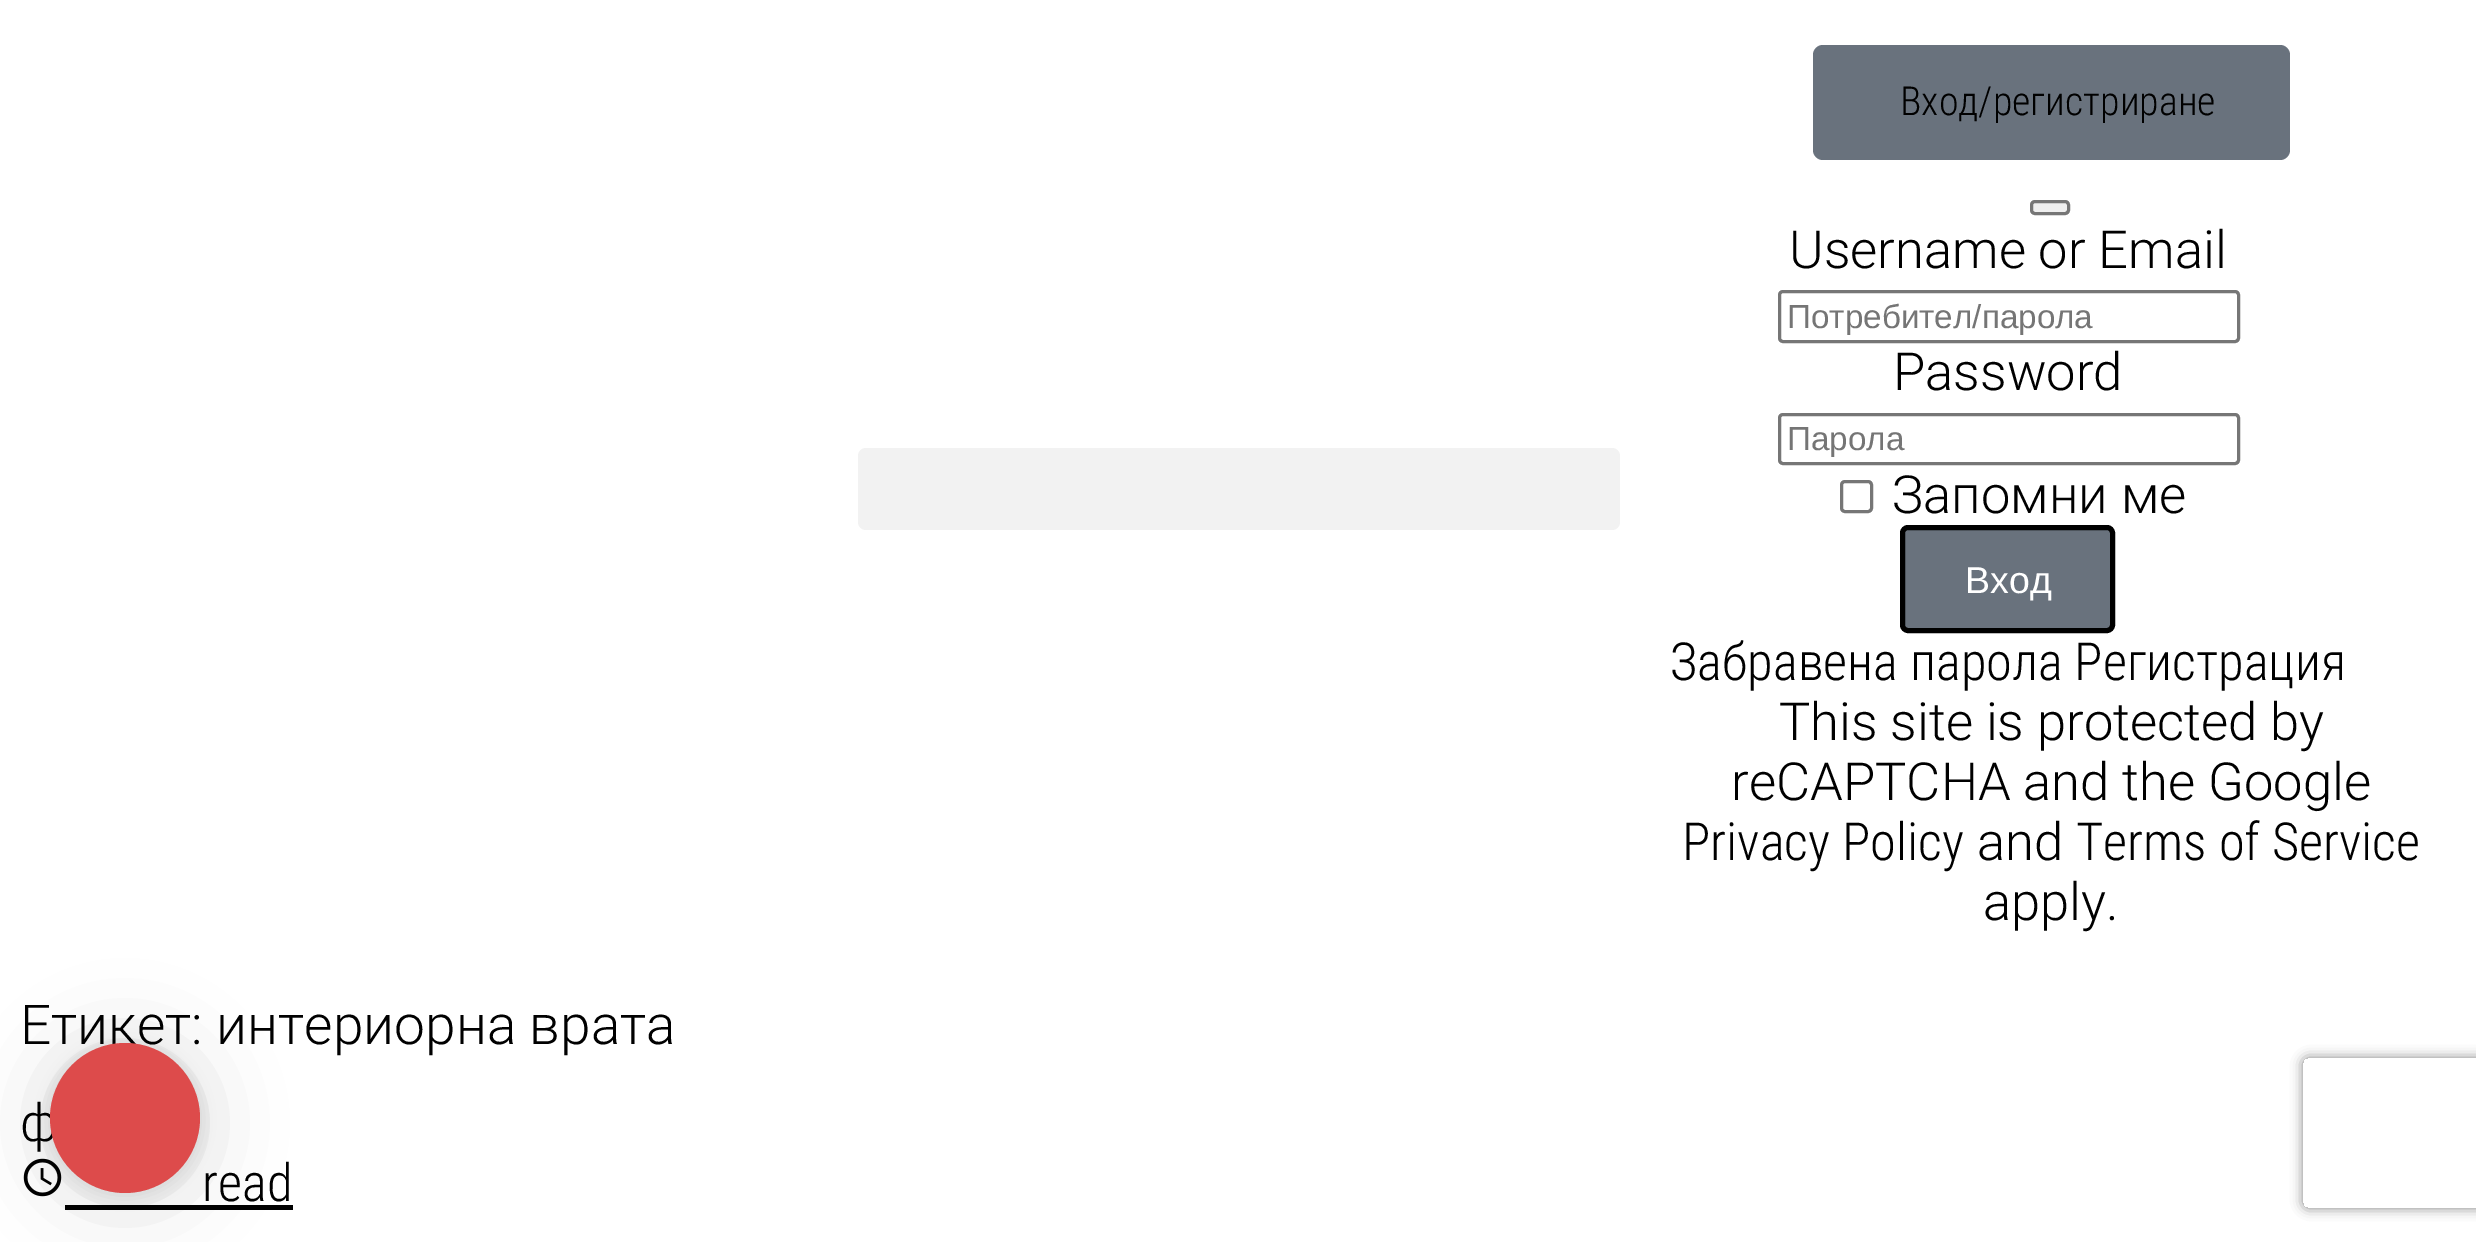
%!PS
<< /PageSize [2476 1242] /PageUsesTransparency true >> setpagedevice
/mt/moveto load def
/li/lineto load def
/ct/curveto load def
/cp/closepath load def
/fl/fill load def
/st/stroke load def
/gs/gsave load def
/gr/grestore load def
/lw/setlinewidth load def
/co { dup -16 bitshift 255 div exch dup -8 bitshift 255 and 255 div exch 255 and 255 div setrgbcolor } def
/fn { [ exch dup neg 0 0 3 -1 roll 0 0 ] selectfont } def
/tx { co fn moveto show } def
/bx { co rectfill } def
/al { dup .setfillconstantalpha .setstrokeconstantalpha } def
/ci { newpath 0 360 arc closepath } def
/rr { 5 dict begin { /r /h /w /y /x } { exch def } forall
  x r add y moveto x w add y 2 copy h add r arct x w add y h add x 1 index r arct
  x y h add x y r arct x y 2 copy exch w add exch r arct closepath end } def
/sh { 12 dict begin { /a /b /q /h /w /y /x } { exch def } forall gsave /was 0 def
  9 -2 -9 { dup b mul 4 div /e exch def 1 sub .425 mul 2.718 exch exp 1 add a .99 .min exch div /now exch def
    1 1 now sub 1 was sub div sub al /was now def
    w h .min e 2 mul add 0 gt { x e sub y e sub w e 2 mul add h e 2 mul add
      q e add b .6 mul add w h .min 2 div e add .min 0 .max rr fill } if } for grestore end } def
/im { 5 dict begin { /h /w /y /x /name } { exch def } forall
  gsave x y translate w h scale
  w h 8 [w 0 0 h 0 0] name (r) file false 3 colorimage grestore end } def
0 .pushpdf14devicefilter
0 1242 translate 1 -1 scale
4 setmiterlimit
0 0 2476 1242 16#FFFFFF bx
16#F2F2F2 co
858 448 762 82 8 rr fl
16#69727D co
1813 45 477 115 10 rr fl
16#EFEFEF co
2031.5 201.5 37 12 3.5 rr gs fl gr
16#767676 co
3 lw
st
1779.5 291.5 459 50 3.5 rr st
1779.5 414.5 459 49 3.5 rr st
1841.5 481.5 30 30 3.5 rr st
16#69727D co
1902.5 527.5 210 103 5.5 rr gs fl gr
16#000000 co
5 lw
st
(media/1.raw) 23 1158 39 39 im
65 1205 228 5 16#000000 bx
50 1048 150 150 75 40 .16 sh
50 1045 150 150 75 7.5 .1 sh
gs
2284 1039 mt 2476 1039 li 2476 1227 li 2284 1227 li cp 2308 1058 mt 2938 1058 li 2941 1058 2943 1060 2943 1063 ct 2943 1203 li 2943 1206 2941 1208 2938 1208 ct 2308 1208 li 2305 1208 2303 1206 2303 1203 ct 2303 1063 li 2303 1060 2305 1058 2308 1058 ct cp eoclip newpath
16#808080 co
2303 1058 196 150 5 6 1 sh
gr
(Вход/регистриране) 1900 115 /RobotoCondensed-Light 40 16#000000 tx
(Username or Email) 1789 268 /Roboto-Light 52.5 16#000000 tx
(Потребител/парола) 1787 328 /LiberationSans-Regular 33.25 16#757575 tx
(Password) 1893 390 /Roboto-Light 52.5 16#000000 tx
(Парола) 1787 450 /LiberationSans-Regular 33.25 16#757575 tx
(Запомни ме) 1892 513 /Roboto-Light 52.5 16#000000 tx
(Вход) 1965 593 /LiberationSans-Regular 37.5 16#FFFFFF tx
(Забравена парола Регистрация) 1670 680 /RobotoCondensed-Light 52.5 16#000000 tx
(This site is protected by) 1779 740 /Roboto-Light 52.5 16#000000 tx
(reCAPTCHA and the Google) 1731 800 /Roboto-Light 52.5 16#000000 tx
(Privacy Policy) 1682 860 /RobotoCondensed-Light 52.5 16#000000 tx
(and) 1977 860 /Roboto-Light 52.5 16#000000 tx
(Terms of Service) 2076 860 /RobotoCondensed-Light 52.5 16#000000 tx
(apply.) 1983 920 /Roboto-Light 52.5 16#000000 tx
(Етикет: интериорна врата) 20 1044 /Roboto-Light 55 16#000000 tx
(ф) 20 1141 /Roboto-Light 52.5 16#000000 tx
(read) 202 1201 /RobotoCondensed-Light 52.5 16#000000 tx
16#DD4B4B co
125 1118 75 ci fl
.poppdf14devicefilter showpage
